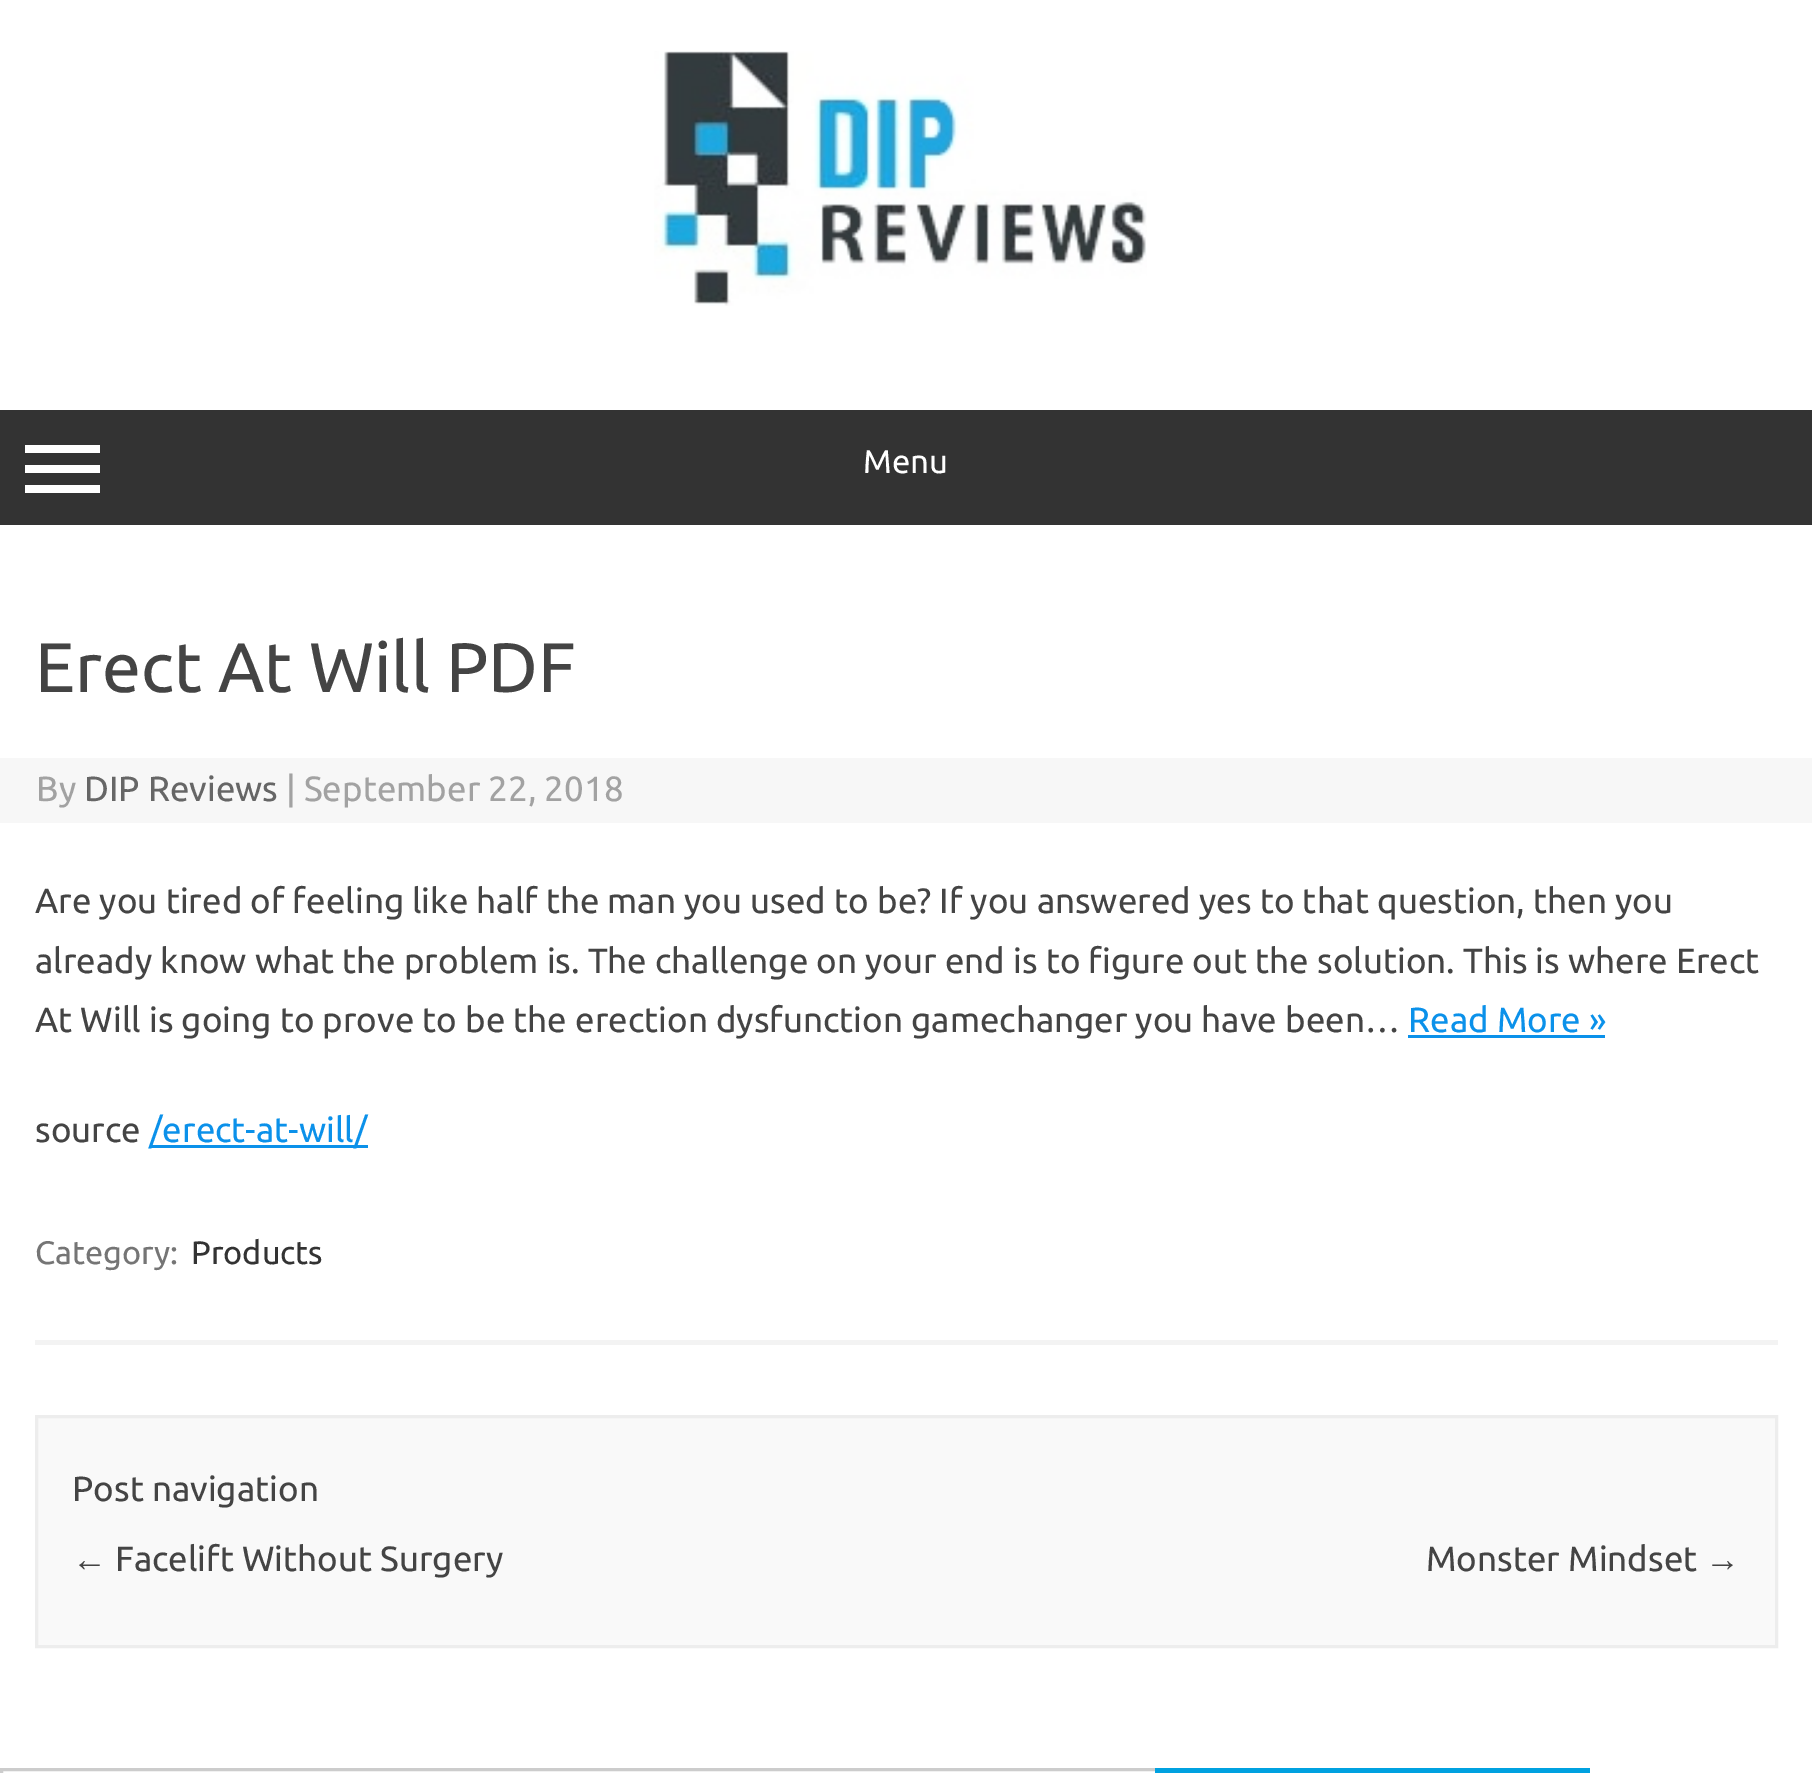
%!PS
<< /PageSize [1812 1773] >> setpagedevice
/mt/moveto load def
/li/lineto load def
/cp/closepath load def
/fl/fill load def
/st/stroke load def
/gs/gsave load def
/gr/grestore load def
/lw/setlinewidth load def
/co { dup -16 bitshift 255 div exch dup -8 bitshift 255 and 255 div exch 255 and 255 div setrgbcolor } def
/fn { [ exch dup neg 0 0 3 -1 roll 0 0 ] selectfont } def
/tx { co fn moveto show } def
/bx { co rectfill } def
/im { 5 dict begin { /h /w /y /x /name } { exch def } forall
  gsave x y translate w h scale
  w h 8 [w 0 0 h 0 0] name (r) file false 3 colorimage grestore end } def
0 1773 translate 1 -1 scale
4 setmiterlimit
0 0 1812 1773 16#FFFFFF bx
(media/1.raw) 654 51 493 255 im
0 410 1812 115 16#333333 bx
25 445 75 8 16#FFFFFF bx
25 465 75 8 16#FFFFFF bx
25 485 75 8 16#FFFFFF bx
35 1340 1743 5 16#F3F3F3 bx
0 758 1812 65 16#F7F7F7 bx
1408 1035 197 3 16#0B91EA bx
150 1145 218 3 16#0B91EA bx
16#F9F9F9 co
36.5 1416.5 mt 1776.5 1416.5 li 1776.5 1646.5 li 36.5 1646.5 li cp gs fl gr
16#EDEDED co
3 lw
st
16#CCCCCC co
1.5 1769.5 1157 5 rectstroke
1155 1768 435 5 16#00A1E0 bx
(Menu) 863 473 /Ubuntu-Regular 33 16#FFFFFF tx
(Erect At Will PDF) 35 692 /Ubuntu-Regular 70 16#444444 tx
(By) 36 801 /Ubuntu-Regular 35 16#A2A2A2 tx
(DIP Reviews) 84 801 /Ubuntu-Regular 35 16#666666 tx
(| September 22, 2018) 286 801 /Ubuntu-Regular 35 16#A2A2A2 tx
(Are you tired of feeling like half the man you used to be? If you answered yes to that question, then you) 35 913 /Ubuntu-Regular 35 16#444444 tx
(already know what the problem is. The challenge on your end is to figure out the solution. This is where Erect) 35 973 /Ubuntu-Regular 35 16#444444 tx
(At Will is going to prove to be the erection dysfunction gamechanger you have been…) 35 1032 /Ubuntu-Regular 35 16#444444 tx
(Read More ») 1408 1032 /Ubuntu-Regular 35 16#0B91EA tx
(source) 35 1142 /Ubuntu-Regular 35 16#444444 tx
(/erect-at-will/) 149 1142 /Ubuntu-Regular 35 16#0B91EA tx
(Category:) 35 1264 /Ubuntu-Regular 32.5 16#757575 tx
(Products) 191 1264 /Ubuntu-Regular 32.5 16#333333 tx
(Post navigation) 72 1501 /Ubuntu-Regular 35 16#444444 tx
(←) 72 1571 /LiberationSans-Regular 35 16#444444 tx
(Facelift Without Surgery) 115 1571 /Ubuntu-Regular 35 16#444444 tx
(Monster Mindset) 1426 1571 /Ubuntu-Regular 35 16#444444 tx
(→) 1705 1571 /LiberationSans-Regular 35 16#444444 tx
showpage
